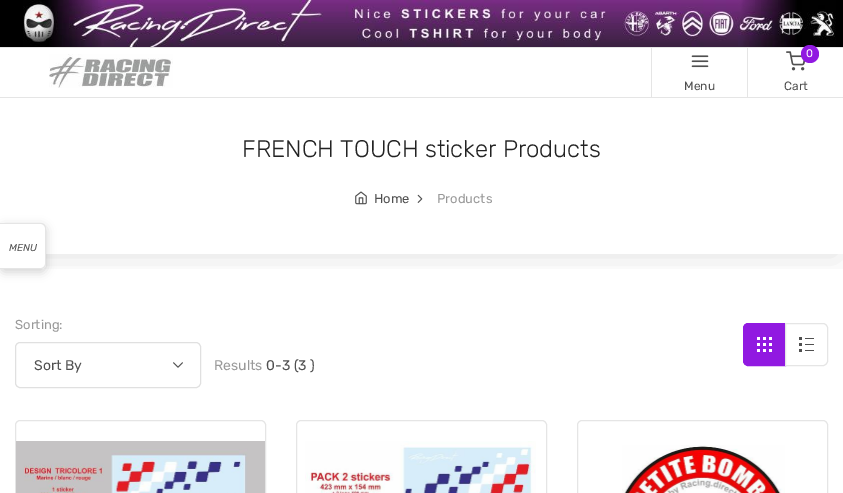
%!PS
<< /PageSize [843 493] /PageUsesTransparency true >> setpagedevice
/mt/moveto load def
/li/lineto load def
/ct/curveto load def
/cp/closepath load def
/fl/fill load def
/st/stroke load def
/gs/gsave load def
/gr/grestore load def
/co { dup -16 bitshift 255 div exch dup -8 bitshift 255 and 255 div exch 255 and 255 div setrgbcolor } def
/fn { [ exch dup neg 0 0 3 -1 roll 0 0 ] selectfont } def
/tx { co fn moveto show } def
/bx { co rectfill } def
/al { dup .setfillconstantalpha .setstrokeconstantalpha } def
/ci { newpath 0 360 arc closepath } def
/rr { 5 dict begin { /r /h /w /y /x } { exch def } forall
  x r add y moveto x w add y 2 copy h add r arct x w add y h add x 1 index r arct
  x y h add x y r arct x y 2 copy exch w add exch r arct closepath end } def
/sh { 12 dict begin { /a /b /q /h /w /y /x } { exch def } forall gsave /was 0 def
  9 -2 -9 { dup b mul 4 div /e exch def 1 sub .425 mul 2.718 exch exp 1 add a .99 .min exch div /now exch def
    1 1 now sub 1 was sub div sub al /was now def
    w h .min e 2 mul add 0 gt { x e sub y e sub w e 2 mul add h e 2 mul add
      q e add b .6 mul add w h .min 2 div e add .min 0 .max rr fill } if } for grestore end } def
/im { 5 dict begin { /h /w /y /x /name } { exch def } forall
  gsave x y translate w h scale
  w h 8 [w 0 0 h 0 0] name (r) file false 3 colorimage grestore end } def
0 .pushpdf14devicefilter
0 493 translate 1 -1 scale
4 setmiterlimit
0 0 843 493 16#FFFFFF bx
0 0 843 47 16#000000 bx
(media/1.raw) 23 0 813 47 im
gs
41 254 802 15 rectclip
6 111 831 144 0 15 .12 sh
gr
6 90 831 7 16#FFFFFF bx
0 47 843 1 16#E5E5E5 bx
0 97 843 1 16#E5E5E5 bx
(media/2.raw) 49 54 124 34 im
651 48 1 49 16#E5E5E5 bx
(media/3.raw) 691 55 18 13 im
747 48 1 49 16#E5E5E5 bx
(media/4.raw) 786 51 20 20 im
16#9119E1 co
810 54 9 ci fl
(media/5.raw) 355 191 12 14 im
(media/6.raw) 417 194 6 9 im
16#000000 co
0 226 46 46 5 5 .18 sh
16#FFFFFF co
0 223 mt 41 223 li 44 223 46 225 46 228 ct 46 264 li 46 267 44 269 41 269 ct 0 269 li cp fl
16#E5E5E5 co
0 223 mt 41 223 li 44 223 46 225 46 228 ct 46 264 li 46 267 44 269 41 269 ct 0 269 li cp 0 224 mt 41 224 li 43 224 45 226 45 228 ct 45 264 li 45 266 43 268 41 268 ct 0 268 li cp eofill
(media/7.raw) 173 362 10 6 im
16#E0E0E0 co
15.5 342.5 185 45 4.5 rr st
16#9119E1 co
748 323.5 mt 785.5 323.5 li 785.5 365.5 li 748 365.5 li 745.5 365.5 743.5 363.5 743.5 361 ct 743.5 328 li 743.5 325.5 745.5 323.5 748 323.5 ct cp gs fl gr
st
757 337 3 3 16#FFFFFF bx
763 337 3 3 16#FFFFFF bx
769 337 3 3 16#FFFFFF bx
757 343 3 3 16#FFFFFF bx
763 343 3 3 16#FFFFFF bx
769 343 3 3 16#FFFFFF bx
757 349 3 3 16#FFFFFF bx
763 349 3 3 16#FFFFFF bx
769 349 3 3 16#FFFFFF bx
785.5 323.5 mt 823 323.5 li 825.5 323.5 827.5 325.5 827.5 328 ct 827.5 361 li 827.5 363.5 825.5 365.5 823 365.5 ct 785.5 365.5 li cp gs fl gr
16#E5E5E5 co
st
799 337 3 3 16#505050 bx
805 338 9 1 16#505050 bx
799 343 3 3 16#505050 bx
805 344 9 1 16#505050 bx
799 349 3 3 16#505050 bx
805 350 9 1 16#505050 bx
16#E5E5E5 co
15.5 420.5 250 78 4.5 rr st
(media/8.raw) 16 441 249 52 im
296.5 420.5 250 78 4.5 rr st
(media/9.raw) 305 441 231 52 im
577.5 420.5 250 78 4.5 rr st
(media/10.raw) 622 445 163 48 im
(Menu) 684 90 /Rubik-Regular 12 16#505050 tx
(0) 806 57 /Rubik-Regular 11 16#FFFFFF tx
(Cart) 784 90 /Rubik-Regular 12 16#505050 tx
(FRENCH TOUCH sticker Products) 242 157 /Rubik-Light 24 16#232323 tx
(Home) 374 203 /Rubik-Regular 13 16#505050 tx
(Products) 437 203 /Rubik-Regular 13 16#999999 tx
(MENU) 9 251 /Rubik-LightItalic 10 16#505050 tx
(Sorting:) 15 329 /Rubik-Regular 13 16#999999 tx
(Sort By) 34 370 /Rubik-Regular 14 16#505050 tx
(Results) 214 370 /Rubik-Regular 14 16#999999 tx
(0-3 \(3 \)) 266 370 /Rubik-Regular 14 16#505050 tx
.poppdf14devicefilter showpage
